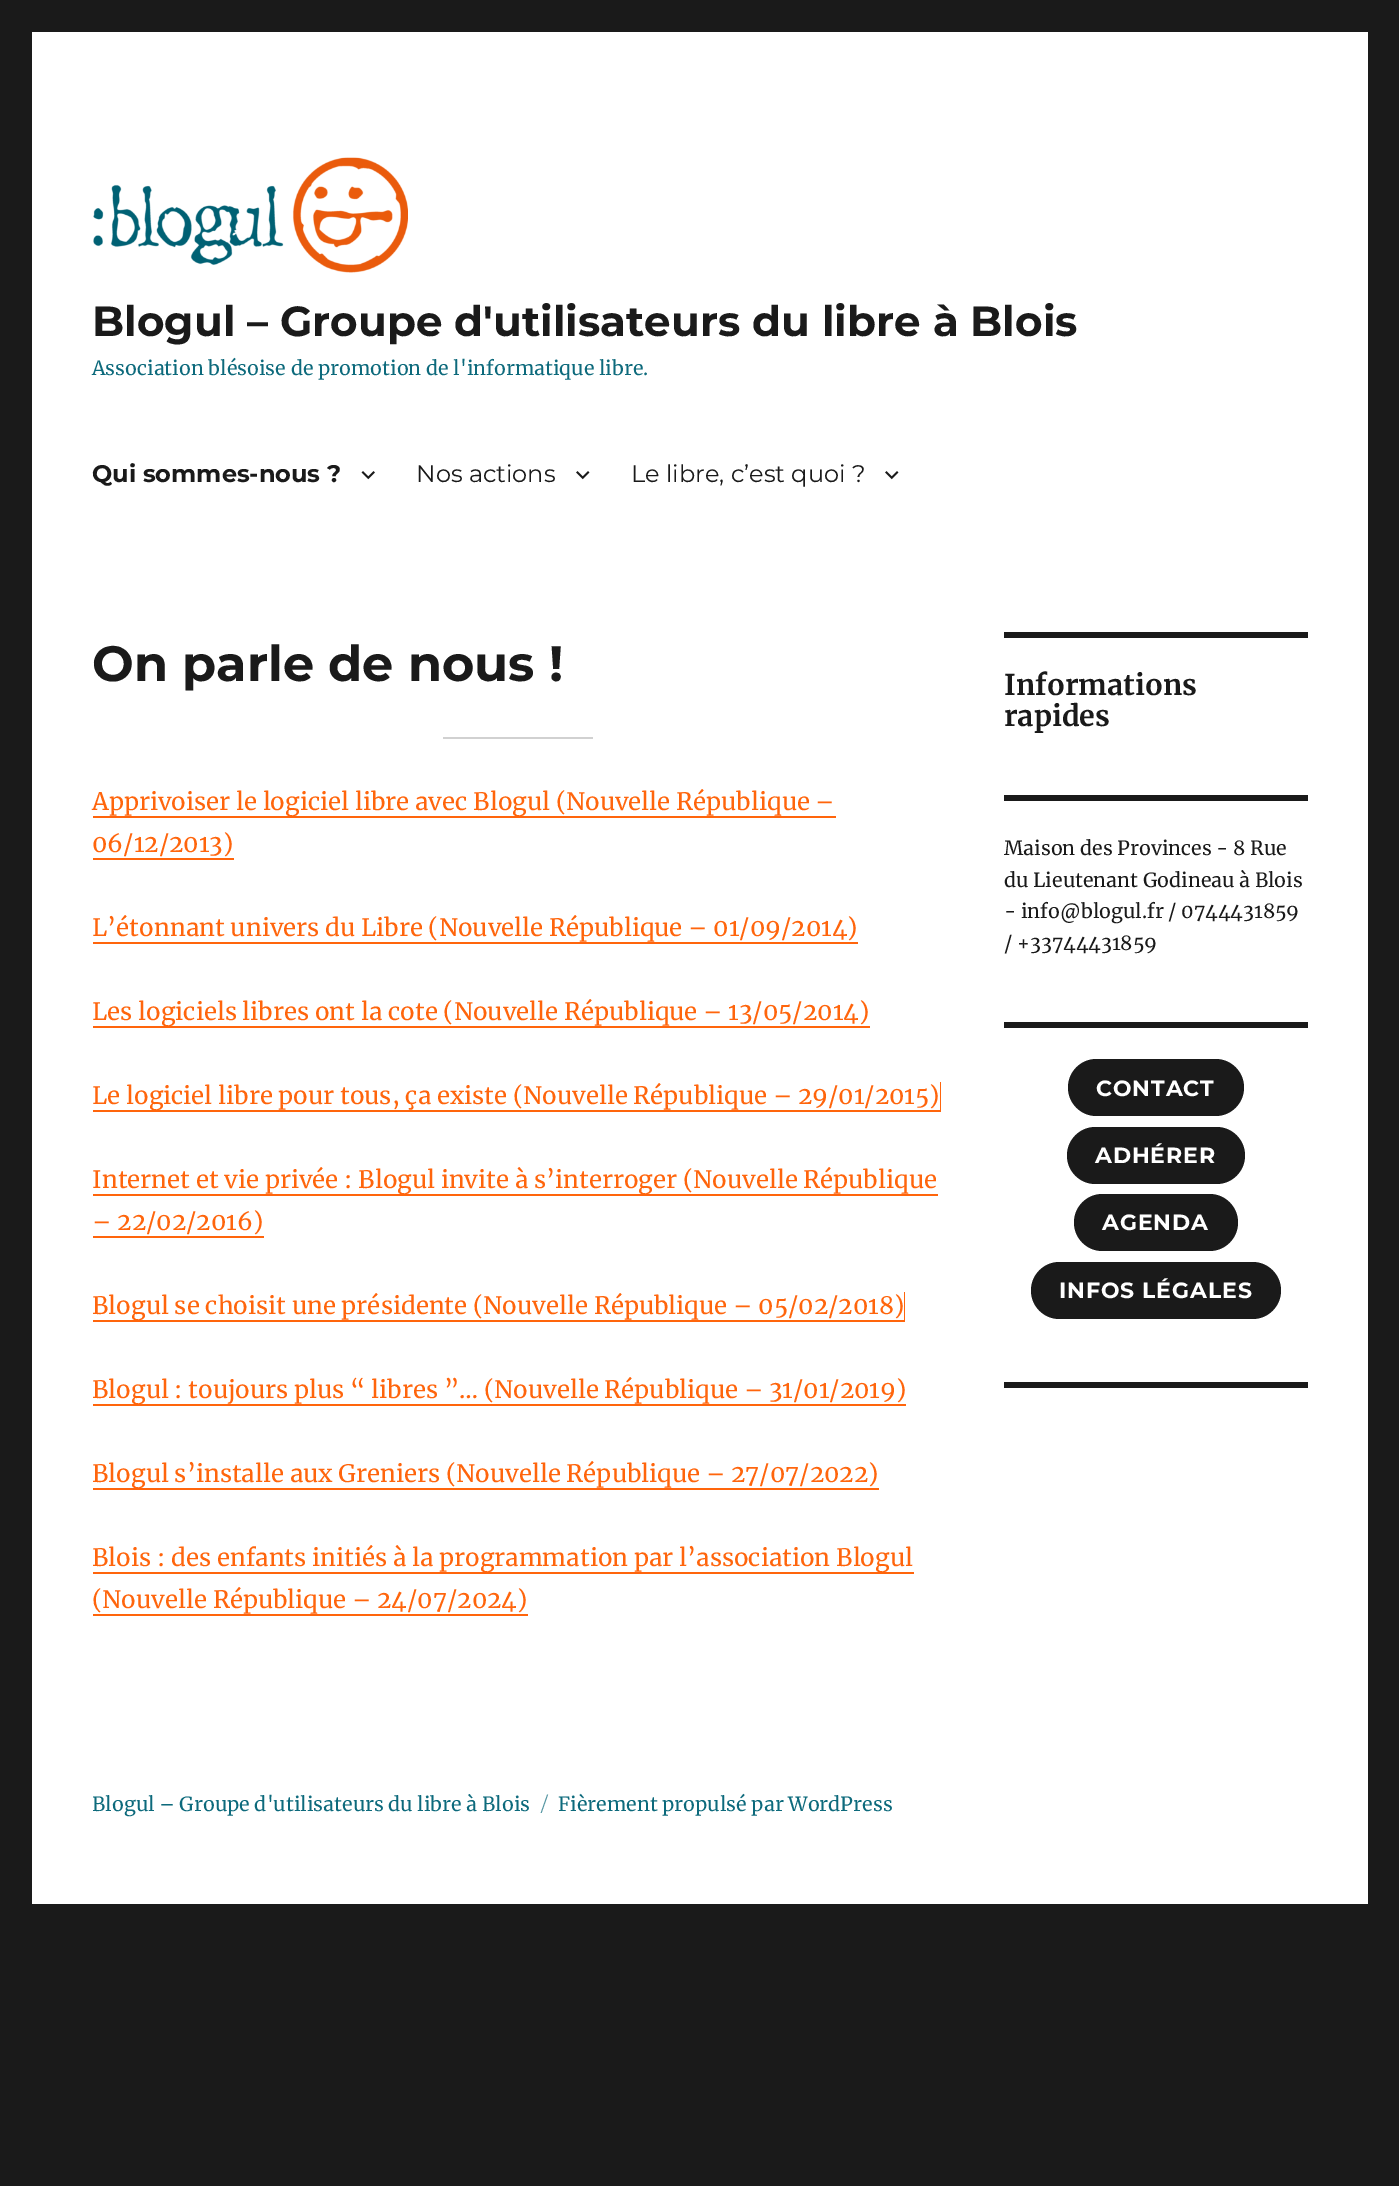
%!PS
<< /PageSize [1399 2186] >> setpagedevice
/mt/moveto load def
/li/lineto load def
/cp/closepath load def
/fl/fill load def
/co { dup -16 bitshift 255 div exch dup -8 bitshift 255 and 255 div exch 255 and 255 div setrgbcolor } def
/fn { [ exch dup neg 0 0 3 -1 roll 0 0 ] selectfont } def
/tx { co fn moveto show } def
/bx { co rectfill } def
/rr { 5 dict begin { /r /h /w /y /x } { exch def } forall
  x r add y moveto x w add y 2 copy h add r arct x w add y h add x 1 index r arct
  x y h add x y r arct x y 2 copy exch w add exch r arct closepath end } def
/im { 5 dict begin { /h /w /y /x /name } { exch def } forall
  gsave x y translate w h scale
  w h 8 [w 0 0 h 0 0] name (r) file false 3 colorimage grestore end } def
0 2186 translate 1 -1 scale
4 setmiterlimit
0 0 1399 2186 16#1A1A1A bx
32 32 1336 1872 16#FFFFFF bx
(media/1.raw) 93 157 315 116 im
(media/2.raw) 361 471 14 9 im
(media/3.raw) 576 471 14 9 im
(media/3.raw) 885 471 14 9 im
443 737 150 2 16#D1D1D1 bx
16#FF650C co
93 816 mt 93 818 li 836 818 li 836 788 li 836 816 li cp fl
93 858 141 2 16#FF650C bx
93 942 765 2 16#FF650C bx
93 1026 777 2 16#FF650C bx
93 1110 mt 93 1112 li 941 1112 li 941 1082 li 940 1082 li 940 1110 li cp fl
93 1194 mt 93 1196 li 938 1196 li 938 1166 li 938 1194 li cp fl
93 1236 171 2 16#FF650C bx
93 1320 mt 93 1322 li 905 1322 li 905 1292 li 904 1292 li 904 1320 li cp fl
93 1404 813 2 16#FF650C bx
93 1488 786 2 16#FF650C bx
93 1572 mt 93 1574 li 914 1574 li 914 1544 li 914 1572 li cp fl
93 1614 435 2 16#FF650C bx
1004 632 304 6 16#1A1A1A bx
1004 795 304 6 16#1A1A1A bx
1004 1022 304 6 16#1A1A1A bx
1068 1059 176 57 28.5 rr fl
1067 1127 178 57 28.5 rr fl
1074 1194 164 57 28.5 rr fl
1031 1262 250 57 28.5 rr fl
1004 1382 304 6 16#1A1A1A bx
(Blogul – Groupe d'utilisateurs du libre à Blois) 92 336 /Montserrat-Thin 42 16#1A1A1A tx
(Association blésoise de promotion de l'informatique libre.) 92 375 /Merriweather-Regular 19.5 16#0D6A7C tx
(Qui sommes-nous ?) 92 482 /Montserrat-Thin 24 16#1A1A1A tx
(Nos actions) 416 482 /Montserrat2-Thin 24 16#1A1A1A tx
(Le libre, c’est quoi ?) 631 482 /Montserrat2-Thin 24 16#1A1A1A tx
(On parle de nous !) 92 681 /Montserrat-Thin 49.5 16#1A1A1A tx
(Apprivoiser le logiciel libre avec Blogul \(Nouvelle République –) 92 810 /Merriweather-Regular 24 16#FF650C tx
(06/12/2013\)) 92 852 /Merriweather-Regular 24 16#FF650C tx
(L’étonnant univers du Libre \(Nouvelle République – 01/09/2014\)) 92 936 /Merriweather-Regular 24 16#FF650C tx
(Les logiciels libres ont la cote \(Nouvelle République – 13/05/2014\)) 92 1020 /Merriweather-Regular 24 16#FF650C tx
(Le logiciel libre pour tous, ça existe \(Nouvelle République – 29/01/2015\)) 92 1104 /Merriweather-Regular 24 16#FF650C tx
(Internet et vie privée : Blogul invite à s’interroger \(Nouvelle République) 92 1188 /Merriweather-Regular 24 16#FF650C tx
(– 22/02/2016\)) 92 1230 /Merriweather-Regular 24 16#FF650C tx
(Blogul se choisit une présidente \(Nouvelle République – 05/02/2018\)) 92 1314 /Merriweather-Regular 24 16#FF650C tx
(Blogul : toujours plus “ libres ”… \(Nouvelle République – 31/01/2019\)) 92 1398 /Merriweather-Regular 24 16#FF650C tx
(Blogul s’installe aux Greniers \(Nouvelle République – 27/07/2022\)) 92 1482 /Merriweather-Regular 24 16#FF650C tx
(Blois : des enfants initiés à la programmation par l’association Blogul) 92 1566 /Merriweather-Regular 24 16#FF650C tx
(\(Nouvelle République – 24/07/2024\)) 92 1608 /Merriweather-Regular 24 16#FF650C tx
(Informations) 1004 695 /Merriweather-Bold 28.5 16#1A1A1A tx
(rapides) 1004 726 /Merriweather-Bold 28.5 16#1A1A1A tx
(Maison des Provinces - 8 Rue) 1004 855 /Merriweather-Regular 19.5 16#1A1A1A tx
(du Lieutenant Godineau à Blois) 1004 887 /Merriweather-Regular 19.5 16#1A1A1A tx
(- info@blogul.fr / 0744431859) 1004 918 /Merriweather-Regular 19.5 16#1A1A1A tx
(/ +33744431859) 1004 950 /Merriweather-Regular 19.5 16#1A1A1A tx
/Montserrat-Thin 22 fn
16#FFFFFF co
1096 1096 mt .9 0 (CONTACT) ashow
1095 1163 mt .9 0 (ADHÉRER) ashow
1102 1230 mt .9 0 (AGENDA) ashow
1059 1298 mt .9 0 (INFOS LÉGALES) ashow
(Blogul – Groupe d'utilisateurs du libre à Blois) 92 1811 /Merriweather-Regular 19.5 16#0D6A7C tx
(/) 541 1811 /Montserrat2-Thin 19.5 16#5697A3 tx
(Fièrement propulsé par WordPress) 558 1811 /Merriweather-Regular 19.5 16#0D6A7C tx
showpage
